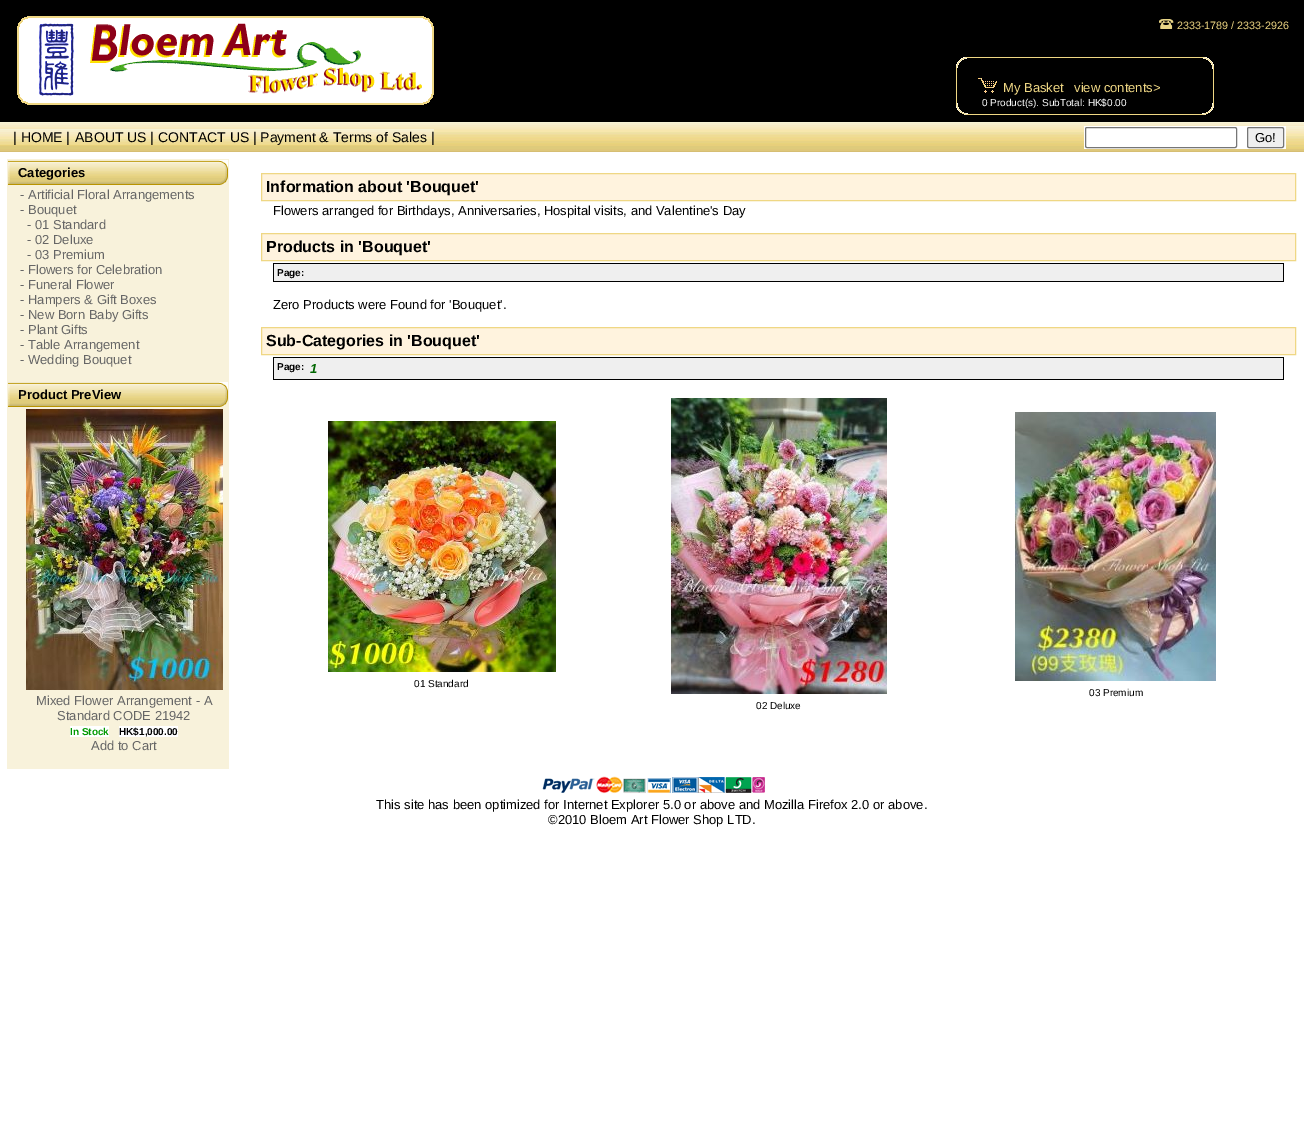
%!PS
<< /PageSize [1304 1144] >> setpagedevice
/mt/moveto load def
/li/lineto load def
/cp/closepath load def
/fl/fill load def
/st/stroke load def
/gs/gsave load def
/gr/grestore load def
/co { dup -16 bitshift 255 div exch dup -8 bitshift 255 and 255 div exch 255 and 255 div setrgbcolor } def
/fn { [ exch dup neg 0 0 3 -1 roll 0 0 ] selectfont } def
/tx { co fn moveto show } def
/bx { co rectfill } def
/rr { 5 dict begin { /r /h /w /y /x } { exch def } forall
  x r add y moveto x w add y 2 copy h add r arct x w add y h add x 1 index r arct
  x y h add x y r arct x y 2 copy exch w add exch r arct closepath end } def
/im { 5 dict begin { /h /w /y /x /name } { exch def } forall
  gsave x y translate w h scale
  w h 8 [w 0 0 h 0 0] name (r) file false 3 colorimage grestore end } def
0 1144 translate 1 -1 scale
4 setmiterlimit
0 0 1304 1144 16#FFFFFF bx
0 0 1304 122 16#000000 bx
(media/1.raw) 17 16 417 89 im
(media/2.raw) 956 57 258 58 im
(media/3.raw) 1159 19 15 10 im
(media/4.raw) 978 78 19 15 im
(media/5.raw) 0 122 867 30 im
(media/6.raw) 0 129 70 16 im
(media/7.raw) 70 129 364 16 im
(media/8.raw) 867 122 437 30 im
(media/9.raw) 1286 126 18 23 im
1084 126 202 23 16#FFFFFF bx
16#767676 co
1085.5 127.5 151 20 1.5 rr st
16#EFEFEF co
1247.5 127.5 36 20 1.5 rr gs fl gr
16#767676 co
st
7 159 222 610 16#F8F2DB bx
(media/10.raw) 8 160 220 25 im
(media/10.raw) 8 382 220 25 im
(media/11.raw) 26 409 197 281 im
70 726 39 11 16#FFFFFF bx
119 726 59 11 16#FFFFFF bx
16#FFF3DE co
261.5 173.5 mt 1295.5 173.5 li 1295.5 200.5 li 261.5 200.5 li cp gs fl gr
16#EFD784 co
st
16#FFF3DE co
261.5 233.5 mt 1295.5 233.5 li 1295.5 260.5 li 261.5 260.5 li cp gs fl gr
16#EFD784 co
st
274 264 1009 17 16#EFEFEF bx
273 263 1011 1 16#000000 bx
273 281 34 1 16#000000 bx
273 263 1 19 16#000000 bx
1283 263 1 19 16#000000 bx
307 281 977 1 16#000000 bx
16#FFF3DE co
261.5 327.5 mt 1295.5 327.5 li 1295.5 354.5 li 261.5 354.5 li cp gs fl gr
16#EFD784 co
st
274 358 1009 21 16#EFEFEF bx
273 357 1011 1 16#000000 bx
273 379 34 1 16#000000 bx
273 357 1 23 16#000000 bx
1283 357 1 23 16#000000 bx
307 379 977 1 16#000000 bx
(media/12.raw) 328 421 228 251 im
(media/13.raw) 1015 412 201 269 im
(media/14.raw) 671 398 216 296 im
(media/15.raw) 542 776 223 18 im
(2333-1789 / 2333-2926) 1177 29 /LiberationSans-Regular 10.75 16#EFD784 tx
(My Basket) 1003 92 /LiberationSans-Regular 13 16#EFD784 tx
(view contents>) 1074 92 /LiberationSans-Regular 13 16#EFD784 tx
(0 Product\(s\). SubTotal: HK$0.00) 982 106 /LiberationSans-Regular 10 16#FFFFFF tx
(| HOME |) 13 142 /LiberationSans-Regular 14 16#000000 tx
(ABOUT US | CONTACT US | Payment & Terms of Sales |) 75 142 /LiberationSans-Regular 14 16#000000 tx
(Go!) 1255 142 /LiberationSans-Regular 13 16#000000 tx
(Categories) 18 177 /LiberationSans-Bold 13 16#000000 tx
(- Artificial Floral Arrangements) 20 199 /LiberationSans-Regular 13 16#666666 tx
(- Bouquet) 20 214 /LiberationSans-Regular 13 16#666666 tx
(- 01 Standard) 27 229 /LiberationSans-Regular 13 16#666666 tx
(- 02 Deluxe) 27 244 /LiberationSans-Regular 13 16#666666 tx
(- 03 Premium) 27 259 /LiberationSans-Regular 13 16#666666 tx
(- Flowers for Celebration) 20 274 /LiberationSans-Regular 13 16#666666 tx
(- Funeral Flower) 20 289 /LiberationSans-Regular 13 16#666666 tx
(- Hampers & Gift Boxes) 20 304 /LiberationSans-Regular 13 16#666666 tx
(- New Born Baby Gifts) 20 319 /LiberationSans-Regular 13 16#666666 tx
(- Plant Gifts) 20 334 /LiberationSans-Regular 13 16#666666 tx
(- Table Arrangement) 20 349 /LiberationSans-Regular 13 16#666666 tx
(- Wedding Bouquet) 20 364 /LiberationSans-Regular 13 16#666666 tx
(Product PreView) 18 399 /LiberationSans-Bold 13 16#000000 tx
(Mixed Flower Arrangement - A) 36 705 /LiberationSans-Regular 13 16#666666 tx
(Standard CODE 21942) 57 720 /LiberationSans-Regular 13 16#666666 tx
(In Stock) 70 735 /LiberationSans-Bold 10 16#009900 tx
(HK$1,000.00) 119 735 /LiberationSans-Bold 10 16#000000 tx
(Add to Cart) 91 750 /LiberationSans-Regular 13 16#666666 tx
(Information about 'Bouquet') 266 192 /LiberationSans-Bold 16 16#000000 tx
(Flowers arranged for Birthdays, Anniversaries, Hospital visits, and Valentine's Day) 273 215 /LiberationSans-Regular 13 16#000000 tx
(Products in 'Bouquet') 266 252 /LiberationSans-Bold 16 16#000000 tx
(Page:) 277 276 /LiberationSans-Bold 10 16#000000 tx
(Zero Products were Found for 'Bouquet'.) 273 309 /LiberationSans-Regular 13 16#000000 tx
(Sub-Categories in 'Bouquet') 266 346 /LiberationSans-Bold 16 16#000000 tx
(Page:) 277 370 /LiberationSans-Bold 10 16#000000 tx
(1) 310 373 /LiberationSans-BoldItalic 13 16#006600 tx
(01 Standard) 414 687 /LiberationSans-Regular 10 16#000000 tx
(03 Premium) 1089 696 /LiberationSans-Regular 10 16#000000 tx
(02 Deluxe) 756 709 /LiberationSans-Regular 10 16#000000 tx
(This site has been optimized for Internet Explorer 5.0 or above and Mozilla Firefox 2.0 or above.) 376 809 /LiberationSans-Regular 13 16#000000 tx
(©2010 Bloem Art Flower Shop LTD.) 548 824 /LiberationSans-Regular 13 16#000000 tx
showpage
